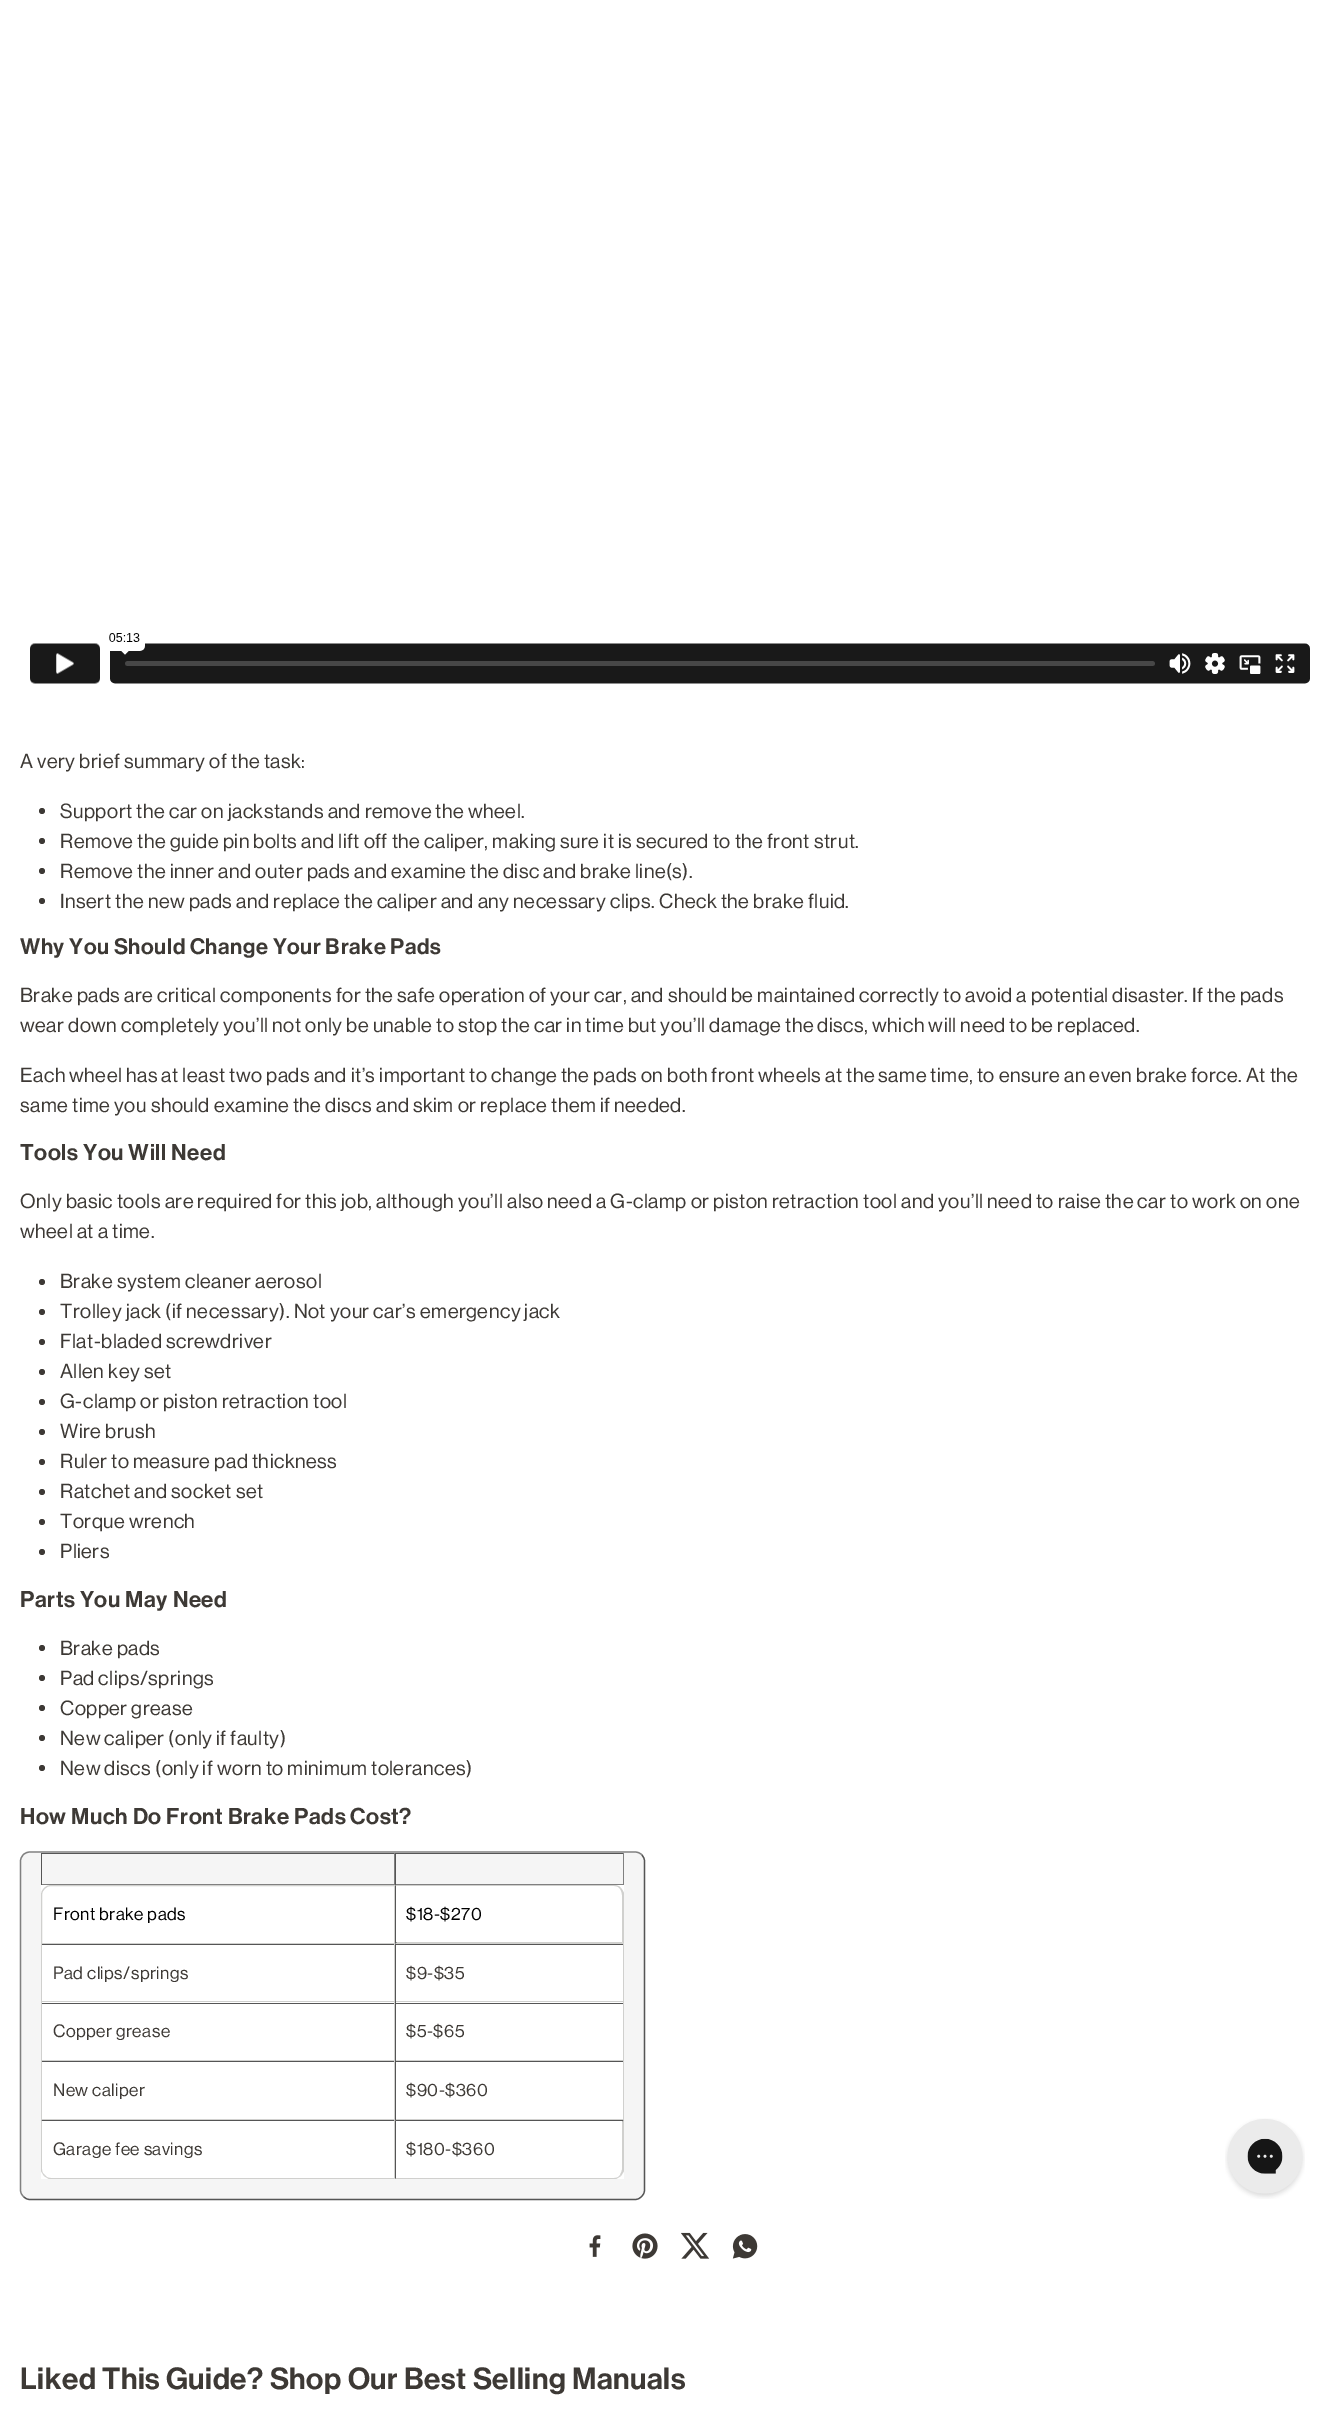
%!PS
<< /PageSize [1340 2415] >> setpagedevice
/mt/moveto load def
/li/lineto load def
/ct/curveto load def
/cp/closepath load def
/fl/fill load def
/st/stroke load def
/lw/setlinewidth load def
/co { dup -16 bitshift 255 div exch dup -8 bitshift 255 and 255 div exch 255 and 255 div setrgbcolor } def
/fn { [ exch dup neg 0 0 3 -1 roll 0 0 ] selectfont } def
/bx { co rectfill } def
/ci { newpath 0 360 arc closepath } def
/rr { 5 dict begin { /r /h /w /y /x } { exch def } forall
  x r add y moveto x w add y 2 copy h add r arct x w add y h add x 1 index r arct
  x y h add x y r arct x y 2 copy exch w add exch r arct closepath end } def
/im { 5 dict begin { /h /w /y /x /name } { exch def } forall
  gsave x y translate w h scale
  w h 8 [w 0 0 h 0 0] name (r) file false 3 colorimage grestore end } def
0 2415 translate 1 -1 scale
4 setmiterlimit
0 0 1340 2415 16#FFFFFF bx
(media/1.raw) 30 633 1280 51 im
16#3D3935 co
42 811 3 ci fl
42 841 3 ci fl
42 871 3 ci fl
42 901 3 ci fl
42 1282 3 ci fl
42 1312 3 ci fl
42 1342 3 ci fl
42 1372 3 ci fl
42 1402 3 ci fl
42 1432 3 ci fl
42 1462 3 ci fl
42 1492 3 ci fl
42 1522 3 ci fl
42 1552 3 ci fl
42 1648 3 ci fl
42 1678 3 ci fl
42 1708 3 ci fl
42 1738 3 ci fl
42 1768 3 ci fl
16#F5F5F5 co
20 1851 625 349 10 rr fl
16#555555 co
1.2 lw
641.5 1854.5 mt 643.5 1856.5 644.5 1859 644.5 1861 ct 644.5 2190 li 644.5 2192.5 643.5 2195 641.5 2196.5 ct 640 2198.5 637.5 2199.5 635 2199.5 ct 30 2199.5 li 27.5 2199.5 25 2198.5 23.5 2196.5 ct st
16#808080 co
23.5 2196.5 mt 21.5 2195 20.5 2192.5 20.5 2190 ct 20.5 1861 li 20.5 1859 21.5 1856.5 23.5 1854.5 ct 25 1853 27.5 1852 30 1852 ct 635 1852 li 637.5 1852 640 1853 641.5 1854.5 ct st
41 1853 583 1 16#555555 bx
394 1853 1 32 16#808080 bx
41 1884 354 1 16#808080 bx
41 1853 1 32 16#555555 bx
623 1853 1 32 16#808080 bx
395 1884 229 1 16#808080 bx
395 1853 1 32 16#555555 bx
41 1885 583 59 16#FFFFFF bx
16#D0D0CE co
1 lw
51 1885.5 mt 394.5 1885.5 li 394.5 1943.5 li 41.5 1943.5 li 41.5 1895 li 41.5 1890 46 1885.5 51 1885.5 ct cp st
395 1885 mt 396 1886 li 614 1886 li 617 1886 619 1887 620 1889 ct 621 1888 li 619 1886 617 1885 614 1885 ct cp fl
621 1888 mt 622 1889 623 1891 624 1893 ct 624 1944 li 622 1942 li 622 1895 li 622 1893 621 1890 620 1889 ct cp fl
624 1944 mt 622 1942 li 397 1942 li 395 1944 li cp fl
16#555555 co
395 1885 mt 395 1944 li 397 1942 li 396 1942 li 396 1886 li cp fl
42 1945 581 58 16#FFFFFF bx
41 1944 583 1 16#555555 bx
394 1944 1 59 16#D0D0CE bx
41 2001 354 1 16#D0D0CE bx
41 1944 1 59 16#D0D0CE bx
623 1944 1 59 16#D0D0CE bx
395 2001 229 1 16#D0D0CE bx
395 1944 1 59 16#555555 bx
42 2004 581 56 16#FFFFFF bx
41 2003 583 1 16#555555 bx
394 2003 1 58 16#D0D0CE bx
41 2060 354 1 16#D0D0CE bx
41 2003 1 58 16#D0D0CE bx
623 2003 1 58 16#D0D0CE bx
395 2060 229 1 16#D0D0CE bx
395 2003 1 58 16#555555 bx
42 2062 581 57 16#FFFFFF bx
41 2061 583 1 16#555555 bx
394 2061 1 59 16#D0D0CE bx
41 2119 354 1 16#D0D0CE bx
41 2061 1 59 16#D0D0CE bx
623 2061 1 59 16#D0D0CE bx
395 2119 229 1 16#D0D0CE bx
395 2061 1 59 16#555555 bx
41 2120 583 59 16#FFFFFF bx
16#555555 co
41 2120 mt 42 2121 li 394 2121 li 395 2120 li cp fl
16#D0D0CE co
395 2120 mt 394 2121 li 394 2178 li 395 2179 li cp fl
395 2179 mt 49 2179 li 47 2178 46 2177 44 2176 ct 45 2175 li 46 2177 48 2178 51 2178 ct 394 2178 li cp fl
42 2121 mt 42 2169 li 42 2172 43 2174 45 2175 ct 44 2176 li 43 2174 42 2173 41 2171 ct 41 2120 li cp fl
16#555555 co
395 2120 mt 396 2121 li 622 2121 li 622 2122 li 624 2120 li cp fl
16#D0D0CE co
624 2120 mt 624 2171 li 623 2173 622 2174 621 2176 ct 620 2175 li 621 2173 622 2171 622 2169 ct 622 2122 li cp fl
616 2179 mt 395 2179 li 396 2178 li 614 2178 li 617 2178 619 2177 620 2175 ct 621 2176 li 619 2177 618 2178 616 2179 ct cp fl
16#555555 co
395 2120 mt 395 2179 li 396 2178 li 396 2121 li cp fl
(media/2.raw) 589 2235 12 22 im
(media/3.raw) 632 2233 26 26 im
(media/4.raw) 681 2232 29 27 im
(media/5.raw) 732 2234 26 25 im
(media/6.raw) 1225 2118 80 81 im
/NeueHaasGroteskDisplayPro-Medium 20 fn
16#3D3935 co
20 768 mt .5 0 (A very brief summary of the task:) ashow
60 818 mt .5 0 (Support the car on jackstands and remove the wheel.) ashow
60 848 mt .5 0 (Remove the guide pin bolts and lift off the caliper, making sure it is secured to the front strut.) ashow
60 878 mt .5 0 (Remove the inner and outer pads and examine the disc and brake line\(s\).) ashow
60 908 mt .5 0 (Insert the new pads and replace the caliper and any necessary clips. Check the brake fluid.) ashow
/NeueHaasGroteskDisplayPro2-Medium 22 fn
20 954 mt .6 0 (Why You Should Change Your Brake Pads) ashow
/NeueHaasGroteskDisplayPro-Medium 20 fn
20 1002 mt .5 0 (Brake pads are critical components for the safe operation of your car, and should be maintained correctly to avoid a potential disaster. If the pads) ashow
20 1032 mt .5 0 (wear down completely you’ll not only be unable to stop the car in time but you’ll damage the discs, which will need to be replaced.) ashow
20 1082 mt .5 0 (Each wheel has at least two pads and it’s important to change the pads on both front wheels at the same time, to ensure an even brake force. At the) ashow
20 1112 mt .5 0 (same time you should examine the discs and skim or replace them if needed.) ashow
/NeueHaasGroteskDisplayPro2-Medium 22.5 fn
20 1160 mt .6 0 (Tools You Will Need) ashow
/NeueHaasGroteskDisplayPro-Medium 20 fn
20 1208 mt .5 0 (Only basic tools are required for this job, although you’ll also need a G-clamp or piston retraction tool and you’ll need to raise the car to work on one) ashow
20 1238 mt .5 0 (wheel at a time.) ashow
60 1288 mt .5 0 (Brake system cleaner aerosol) ashow
60 1318 mt .5 0 (Trolley jack \(if necessary\). Not your car’s emergency jack) ashow
60 1348 mt .5 0 (Flat-bladed screwdriver) ashow
60 1378 mt .5 0 (Allen key set) ashow
60 1408 mt .5 0 (G-clamp or piston retraction tool) ashow
60 1438 mt .5 0 (Wire brush) ashow
60 1468 mt .5 0 (Ruler to measure pad thickness) ashow
60 1498 mt .5 0 (Ratchet and socket set) ashow
60 1528 mt .5 0 (Torque wrench) ashow
60 1558 mt .5 0 (Pliers) ashow
/NeueHaasGroteskDisplayPro2-Medium 22.5 fn
20 1607 mt .6 0 (Parts You May Need) ashow
/NeueHaasGroteskDisplayPro-Medium 20 fn
60 1655 mt .5 0 (Brake pads) ashow
60 1685 mt .5 0 (Pad clips/springs) ashow
60 1715 mt .5 0 (Copper grease) ashow
60 1745 mt .5 0 (New caliper \(only if faulty\)) ashow
60 1775 mt .5 0 (New discs \(only if worn to minimum tolerances\)) ashow
/NeueHaasGroteskDisplayPro2-Medium 22.5 fn
20 1824 mt .6 0 (How Much Do Front Brake Pads Cost?) ashow
/NeueHaasGroteskDisplayPro-Medium 17.5 fn
16#000000 co
53 1920 mt .5 0 (Front brake pads) ashow
406 1920 mt .5 0 ($18-$270) ashow
16#3D3935 co
53 1979 mt .5 0 (Pad clips/springs) ashow
406 1979 mt .5 0 ($9-$35) ashow
53 2037 mt .5 0 (Copper grease) ashow
406 2037 mt .5 0 ($5-$65) ashow
53 2096 mt .5 0 (New caliper) ashow
406 2096 mt .5 0 ($90-$360) ashow
53 2155 mt .5 0 (Garage fee savings) ashow
406 2155 mt .5 0 ($180-$360) ashow
/NeueHaasGroteskDisplayPro2-Medium 30 fn
20 2389 mt .6 0 (Liked This Guide? Shop Our Best Selling Manuals) ashow
showpage
